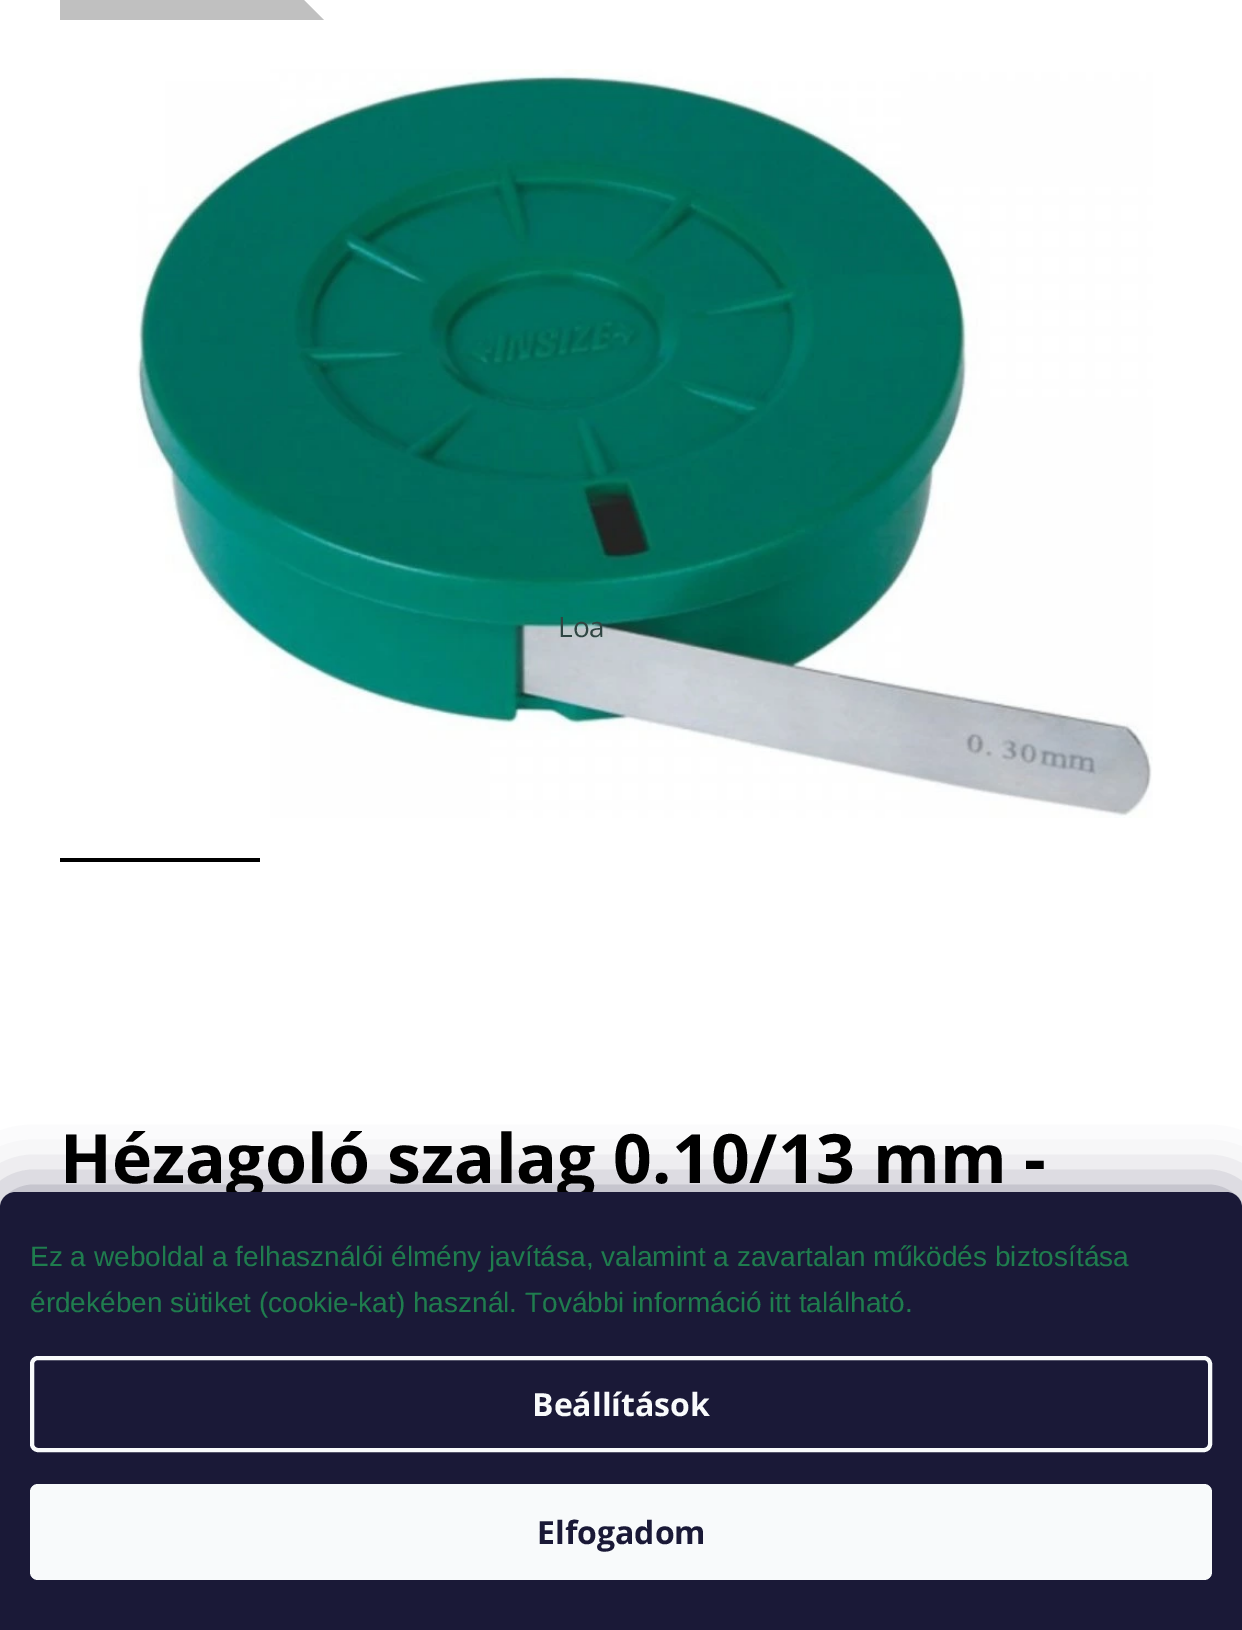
%!PS
<< /PageSize [1242 1630] /PageUsesTransparency true >> setpagedevice
/mt/moveto load def
/li/lineto load def
/ct/curveto load def
/cp/closepath load def
/fl/fill load def
/st/stroke load def
/lw/setlinewidth load def
/co { dup -16 bitshift 255 div exch dup -8 bitshift 255 and 255 div exch 255 and 255 div setrgbcolor } def
/fn { [ exch dup neg 0 0 3 -1 roll 0 0 ] selectfont } def
/tx { co fn moveto show } def
/bx { co rectfill } def
/al { dup .setfillconstantalpha .setstrokeconstantalpha } def
/rr { 5 dict begin { /r /h /w /y /x } { exch def } forall
  x r add y moveto x w add y 2 copy h add r arct x w add y h add x 1 index r arct
  x y h add x y r arct x y 2 copy exch w add exch r arct closepath end } def
/sh { 12 dict begin { /a /b /q /h /w /y /x } { exch def } forall gsave /was 0 def
  9 -2 -9 { dup b mul 4 div /e exch def 1 sub .425 mul 2.718 exch exp 1 add a .99 .min exch div /now exch def
    1 1 now sub 1 was sub div sub al /was now def
    w h .min e 2 mul add 0 gt { x e sub y e sub w e 2 mul add h e 2 mul add
      q e add b .6 mul add w h .min 2 div e add .min 0 .max rr fill } if } for grestore end } def
/im { 5 dict begin { /h /w /y /x /name } { exch def } forall
  gsave x y translate w h scale
  w h 8 [w 0 0 h 0 0] name (r) file false 3 colorimage grestore end } def
0 .pushpdf14devicefilter
0 1630 translate 1 -1 scale
4 setmiterlimit
0 0 1242 1630 16#FFFFFF bx
60 0 240 20 16#C0C0C0 bx
276 -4 mt 300 -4 li 324 20 li 300 20 li cp fl
(media/1.raw) 136 69 1017 749 im
60 858 200 4 16#000000 bx
16#1B1939 co
0 1192 1242 438 16 30 .5 sh
(Loa) 558 637 /OpenSans-Regular 28 16#2F4542 tx
(Hézagoló szalag 0.10/13 mm -) 60 1183 /OpenSans-Bold 68 16#000000 tx
16#1A1937 co
16 1192 mt 1226 1192 li 1235 1192 1242 1199 1242 1208 ct 1242 1630 li 0 1630 li 0 1208 li 0 1199 7 1192 16 1192 ct cp fl
(Ez a weboldal a felhasználói élmény javítása, valamint a zavartalan működés biztosítása) 30 1266 /LiberationSans-Regular 28 16#1F7D4E tx
(érdekében sütiket \(cookie-kat\) használ. További információ itt található.) 30 1312 /LiberationSans-Regular 28 16#1F7D4E tx
16#F8FAFB co
4 lw
32 1358 1178 92 6 rr st
(Beállítások) 532 1416 /OpenSans-Bold 32 16#F8FAFB tx
30 1484 1182 96 8 rr fl
(Elfogadom) 537 1544 /OpenSans-Bold 32 16#1A1937 tx
.poppdf14devicefilter showpage
